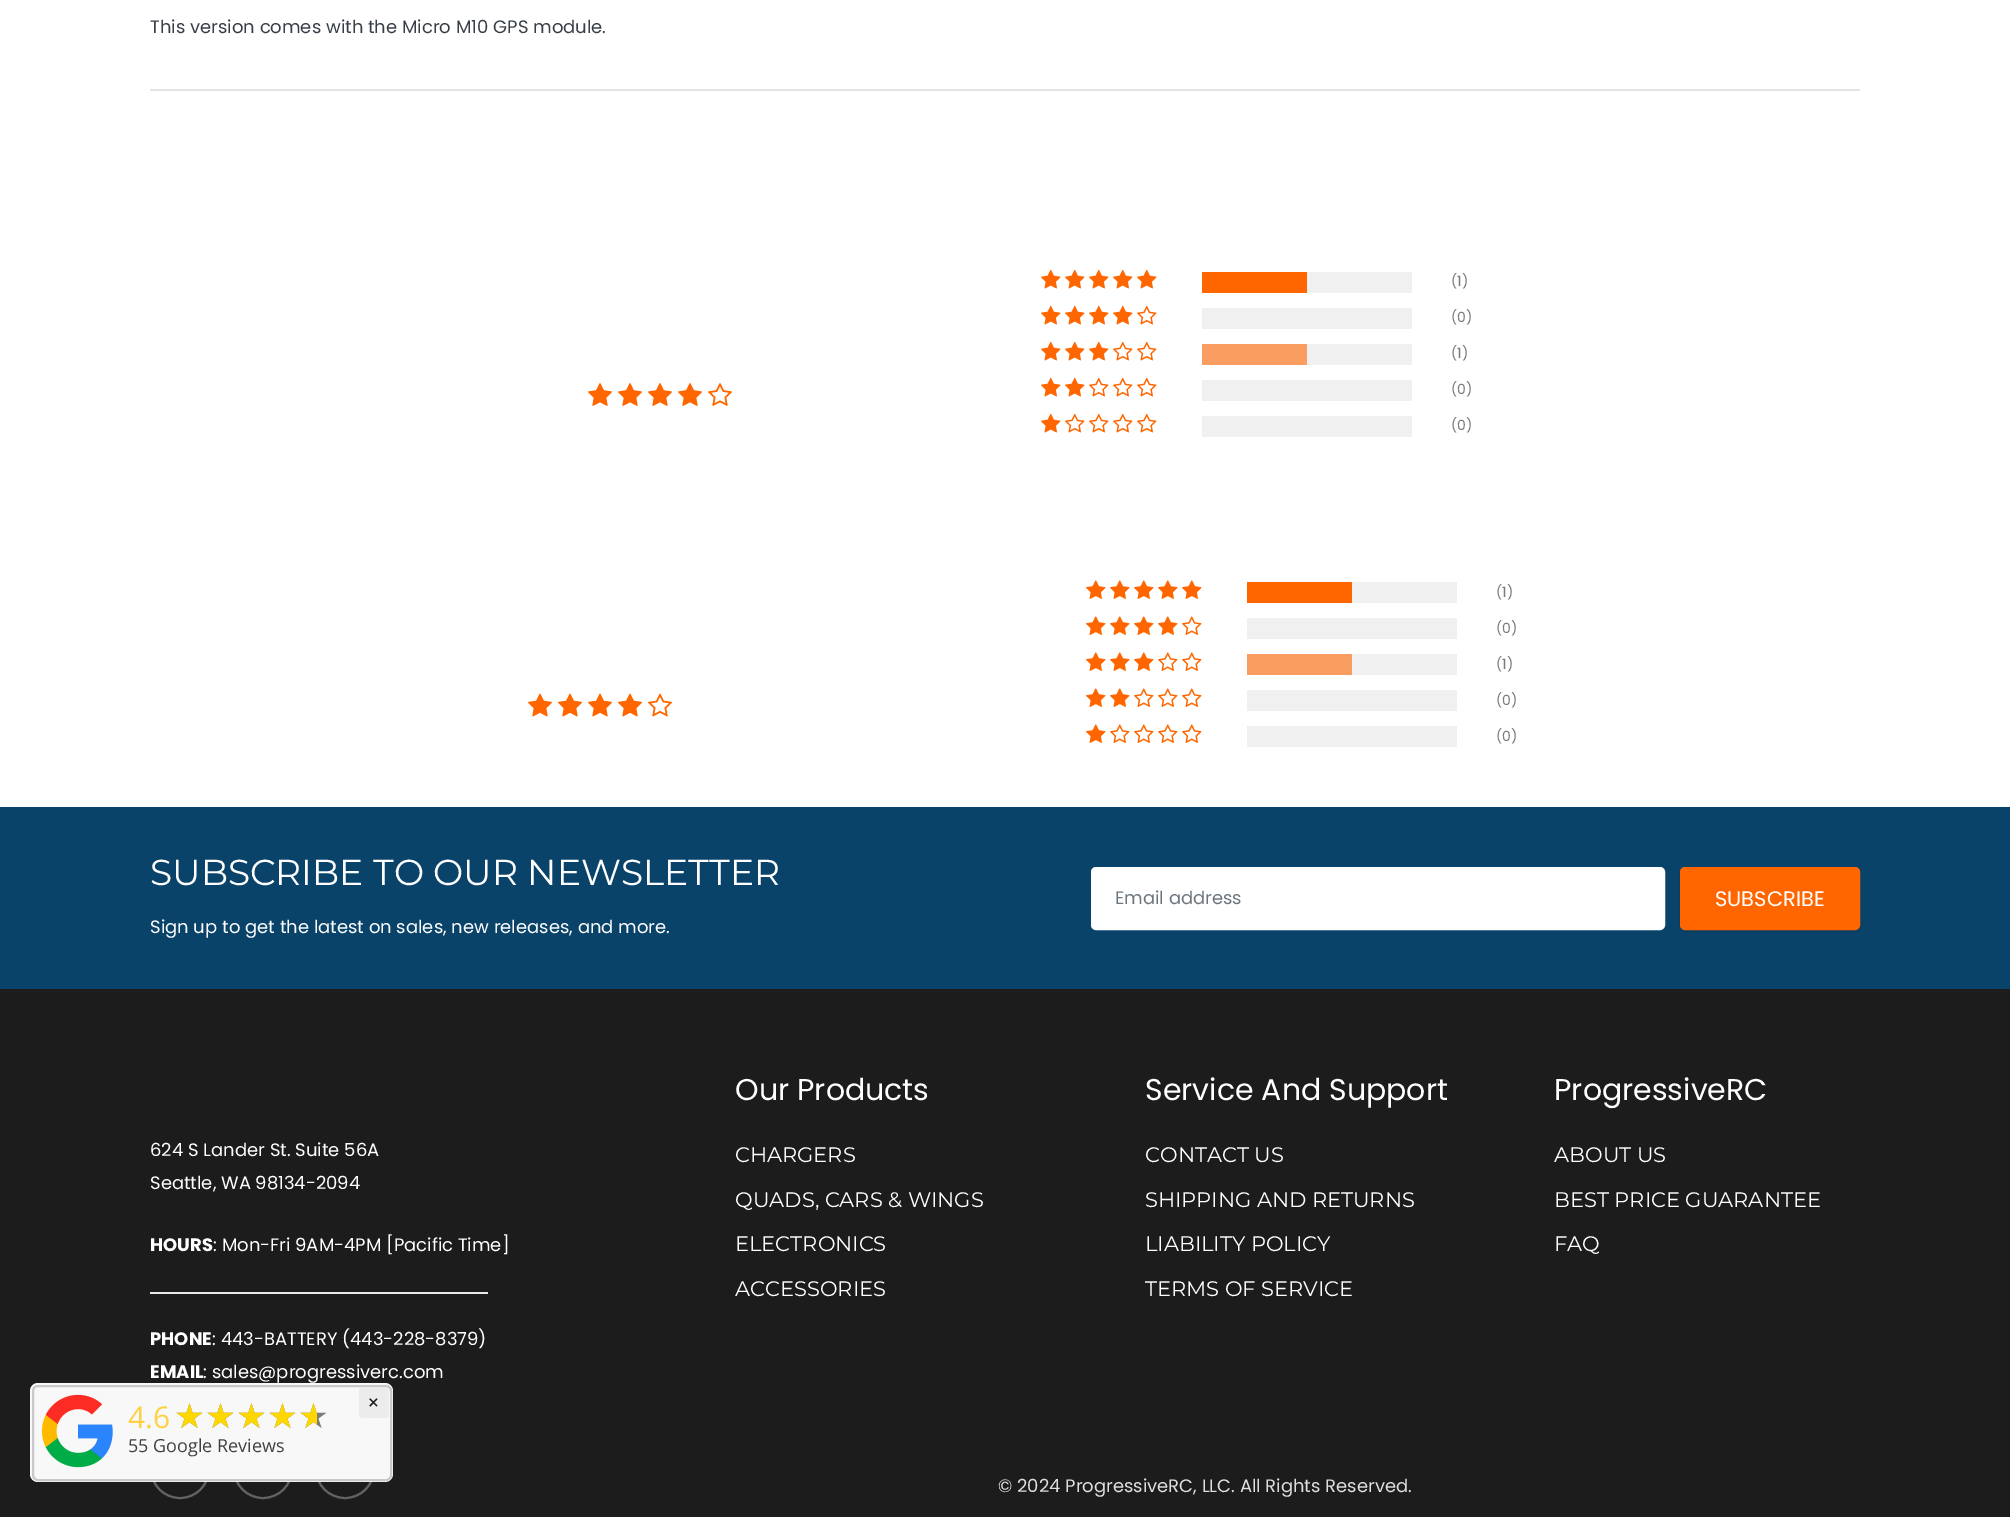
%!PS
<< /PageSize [2010 1517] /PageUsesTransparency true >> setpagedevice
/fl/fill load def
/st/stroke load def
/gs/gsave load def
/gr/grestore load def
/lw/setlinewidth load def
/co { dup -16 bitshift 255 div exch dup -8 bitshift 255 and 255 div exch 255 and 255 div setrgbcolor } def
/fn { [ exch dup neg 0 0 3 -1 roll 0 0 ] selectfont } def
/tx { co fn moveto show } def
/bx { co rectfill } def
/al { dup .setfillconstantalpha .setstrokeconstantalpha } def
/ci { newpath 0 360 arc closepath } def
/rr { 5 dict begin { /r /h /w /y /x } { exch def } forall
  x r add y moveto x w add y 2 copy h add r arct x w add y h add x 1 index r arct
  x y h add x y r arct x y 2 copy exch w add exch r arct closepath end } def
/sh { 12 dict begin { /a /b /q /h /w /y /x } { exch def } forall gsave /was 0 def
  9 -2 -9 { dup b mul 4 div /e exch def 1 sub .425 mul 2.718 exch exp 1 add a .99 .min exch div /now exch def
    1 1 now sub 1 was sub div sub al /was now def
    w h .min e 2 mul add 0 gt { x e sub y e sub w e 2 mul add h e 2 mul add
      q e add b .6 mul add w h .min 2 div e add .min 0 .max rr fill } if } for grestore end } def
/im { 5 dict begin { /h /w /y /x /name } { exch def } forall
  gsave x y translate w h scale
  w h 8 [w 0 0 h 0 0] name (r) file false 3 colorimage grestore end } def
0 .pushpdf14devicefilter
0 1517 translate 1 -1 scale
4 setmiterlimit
0 0 2010 1517 16#FFFFFF bx
150 89 1710 2 16#E2E4E8 bx
(media/1.raw) 588 383 24 23 im
(media/1.raw) 618 383 24 23 im
(media/1.raw) 648 383 24 23 im
(media/1.raw) 678 383 24 23 im
(media/2.raw) 708 383 24 23 im
(media/3.raw) 1041 269 20 20 im
(media/3.raw) 1065 269 20 20 im
(media/3.raw) 1089 269 20 20 im
(media/3.raw) 1113 269 20 20 im
(media/3.raw) 1137 269 20 20 im
1307 272 105 21 16#F0F0F0 bx
1202 272 105 21 16#FF6600 bx
(media/3.raw) 1041 305 20 20 im
(media/3.raw) 1065 305 20 20 im
(media/3.raw) 1089 305 20 20 im
(media/3.raw) 1113 305 20 20 im
(media/4.raw) 1137 305 20 20 im
1202 308 210 21 16#F0F0F0 bx
(media/3.raw) 1041 341 20 20 im
(media/3.raw) 1065 341 20 20 im
(media/3.raw) 1089 341 20 20 im
(media/4.raw) 1113 341 20 20 im
(media/4.raw) 1137 341 20 20 im
1307 344 105 21 16#F0F0F0 bx
1202 344 105 21 16#F99D60 bx
(media/3.raw) 1041 377 20 20 im
(media/3.raw) 1065 377 20 20 im
(media/4.raw) 1089 377 20 20 im
(media/4.raw) 1113 377 20 20 im
(media/4.raw) 1137 377 20 20 im
1202 380 210 21 16#F0F0F0 bx
(media/3.raw) 1041 413 20 20 im
(media/4.raw) 1065 413 20 20 im
(media/4.raw) 1089 413 20 20 im
(media/4.raw) 1113 413 20 20 im
(media/4.raw) 1137 413 20 20 im
1202 416 210 21 16#F0F0F0 bx
(media/5.raw) 528 693 24 24 im
(media/5.raw) 558 693 24 24 im
(media/5.raw) 588 693 24 24 im
(media/5.raw) 618 693 24 24 im
(media/6.raw) 648 693 24 24 im
(media/7.raw) 1086 580 20 19 im
(media/7.raw) 1110 580 20 19 im
(media/7.raw) 1134 580 20 19 im
(media/7.raw) 1158 580 20 19 im
(media/7.raw) 1182 580 20 19 im
1352 582 105 21 16#F0F0F0 bx
1247 582 105 21 16#FF6600 bx
(media/7.raw) 1086 616 20 19 im
(media/7.raw) 1110 616 20 19 im
(media/7.raw) 1134 616 20 19 im
(media/7.raw) 1158 616 20 19 im
(media/8.raw) 1182 616 20 19 im
1247 618 210 21 16#F0F0F0 bx
(media/7.raw) 1086 652 20 19 im
(media/7.raw) 1110 652 20 19 im
(media/7.raw) 1134 652 20 19 im
(media/8.raw) 1158 652 20 19 im
(media/8.raw) 1182 652 20 19 im
1352 654 105 21 16#F0F0F0 bx
1247 654 105 21 16#F99D60 bx
(media/7.raw) 1086 688 20 19 im
(media/7.raw) 1110 688 20 19 im
(media/8.raw) 1134 688 20 19 im
(media/8.raw) 1158 688 20 19 im
(media/8.raw) 1182 688 20 19 im
1247 690 210 21 16#F0F0F0 bx
(media/7.raw) 1086 724 20 19 im
(media/8.raw) 1110 724 20 19 im
(media/8.raw) 1134 724 20 19 im
(media/8.raw) 1158 724 20 19 im
(media/8.raw) 1182 724 20 19 im
1247 726 210 21 16#F0F0F0 bx
0 989 2010 528 16#1C1C1C bx
0 807 2010 182 16#0A436A bx
16#FFFFFF co
1092 868 572 61 4 rr gs fl gr
2 lw
st
16#000000 co
1680 869 180 63 5 2 .1 sh
16#FF6600 co
1681 868 178 61 4 rr gs fl gr
st
150 1292 338 2 16#E8E9EB bx
16#636364 co
180 1469 29 ci st
263 1469 29 ci st
345 1469 29 ci st
16#F8F8F9 co
30 1383 363 99 8 rr fl
16#C9C9CB co
33 1386 358 94 5 rr st
(media/9.raw) 41 1394 72 74 im
16#ECECED co
359 1388 30 30 3 rr fl
(This version comes with the Micro M10 GPS module.) 150 33 /Poppins-Regular 18 16#383E47 tx
(\(1\)) 1451 286 /Poppins-Regular 14 16#7B7B7B tx
(\(0\)) 1451 322 /Poppins-Regular 14 16#7B7B7B tx
(\(1\)) 1451 358 /Poppins-Regular 14 16#7B7B7B tx
(\(0\)) 1451 394 /Poppins-Regular 14 16#7B7B7B tx
(\(0\)) 1451 430 /Poppins-Regular 14 16#7B7B7B tx
(\(1\)) 1496 597 /Poppins-Regular 14 16#7B7B7B tx
(\(0\)) 1496 633 /Poppins-Regular 14 16#7B7B7B tx
(\(1\)) 1496 669 /Poppins-Regular 14 16#7B7B7B tx
(\(0\)) 1496 705 /Poppins-Regular 14 16#7B7B7B tx
(\(0\)) 1496 741 /Poppins-Regular 14 16#7B7B7B tx
(SUBSCRIBE TO OUR NEWSLETTER) 150 885 /Montserrat-Regular 36 16#FFFFFF tx
(Sign up to get the latest on sales, new releases, and more.) 150 933 /Poppins-Regular 18 16#FFFFFF tx
(Email address) 1115 904 /Poppins-Regular 18 16#6C757D tx
(SUBSCRIBE) 1715 906 /Poppins-Regular 21 16#FFFFFF tx
(624 S Lander St. Suite 56A) 150 1156 /Poppins-Regular 18 16#FFFFFF tx
(Seattle, WA 98134-2094) 150 1189 /Poppins-Regular 18 16#FFFFFF tx
(HOURS) 150 1251 /Poppins-Bold 18 16#FFFFFF tx
(: Mon-Fri 9AM-4PM [Pacific Time]) 213 1251 /Poppins-Regular 18 16#FFFFFF tx
(PHONE) 150 1345 /Poppins-Bold 18 16#FFFFFF tx
(: 443-BATTERY \(443-228-8379\)) 212 1345 /Poppins-Regular 18 16#FFFFFF tx
(EMAIL) 150 1378 /Poppins-Bold 18 16#FFFFFF tx
(: sales@progressiverc.com) 203 1378 /Poppins-Regular 18 16#FFFFFF tx
(Our Products) 735 1100 /Poppins-Regular 30 16#FFFFFF tx
(CHARGERS) 735 1162 /Montserrat-Regular 21 16#FFFFFF tx
(QUADS, CARS & WINGS) 735 1207 /Montserrat-Regular 21 16#FFFFFF tx
(ELECTRONICS) 735 1251 /Montserrat-Regular 21 16#FFFFFF tx
(ACCESSORIES) 735 1296 /Montserrat-Regular 21 16#FFFFFF tx
(Service And Support) 1145 1100 /Poppins-Regular 30 16#FFFFFF tx
(CONTACT US) 1145 1162 /Montserrat-Regular 21 16#FFFFFF tx
(SHIPPING AND RETURNS) 1145 1207 /Montserrat-Regular 21 16#FFFFFF tx
(LIABILITY POLICY) 1145 1251 /Montserrat-Regular 21 16#FFFFFF tx
(TERMS OF SERVICE) 1145 1296 /Montserrat-Regular 21 16#FFFFFF tx
(ProgressiveRC) 1554 1100 /Poppins-Regular 30 16#FFFFFF tx
(ABOUT US) 1554 1162 /Montserrat-Regular 21 16#FFFFFF tx
(BEST PRICE GUARANTEE) 1554 1207 /Montserrat-Regular 21 16#FFFFFF tx
(FAQ) 1554 1251 /Montserrat-Regular 21 16#FFFFFF tx
(© 2024 ProgressiveRC, LLC. All Rights Reserved.) 998 1492 /Poppins-Regular 18 16#DFDFDF tx
(4.6) 128 1428 /OpenSans-Regular 30 16#FED144 tx
(★★★★★) 174 1428 /DejaVuSans-Regular 34.5 16#7B7B7B tx
gs
174 1403 143 30 rectclip
(★★★★★) 174 1428 /DejaVuSans-Regular 34.5 16#FFD700 tx
gr
(55 Google Reviews) 128 1452 /OpenSans-Regular 18 16#404040 tx
(×) 368 1409 /OpenSans-Bold 18 16#1F1F1F tx
.poppdf14devicefilter showpage
